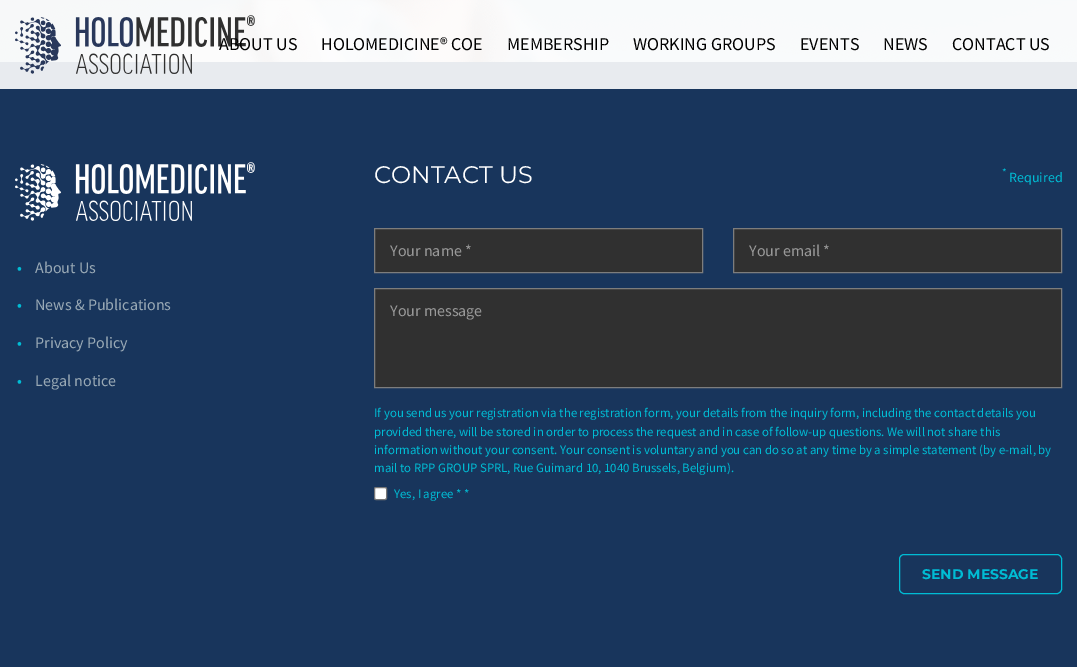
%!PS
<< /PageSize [1077 667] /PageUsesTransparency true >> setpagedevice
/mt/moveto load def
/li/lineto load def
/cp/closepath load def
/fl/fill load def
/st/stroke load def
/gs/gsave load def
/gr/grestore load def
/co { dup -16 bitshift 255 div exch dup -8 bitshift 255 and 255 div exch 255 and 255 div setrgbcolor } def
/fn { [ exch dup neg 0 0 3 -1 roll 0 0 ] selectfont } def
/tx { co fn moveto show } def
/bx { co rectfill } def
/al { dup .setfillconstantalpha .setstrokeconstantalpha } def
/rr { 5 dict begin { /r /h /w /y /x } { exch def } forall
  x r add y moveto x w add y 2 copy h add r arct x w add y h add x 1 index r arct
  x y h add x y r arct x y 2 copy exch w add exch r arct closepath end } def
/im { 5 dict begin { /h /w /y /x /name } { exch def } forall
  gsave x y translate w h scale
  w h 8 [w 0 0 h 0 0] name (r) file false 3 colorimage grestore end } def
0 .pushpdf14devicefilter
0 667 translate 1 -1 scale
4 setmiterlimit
0 0 1077 667 16#FFFFFF bx
(media/1.raw) 0 0 1077 62 im
0 62 1077 605 16#18355C bx
0.9 al
0 0 1077 89 16#FFFFFF bx
1 al
(media/2.raw) 15 15 240 59 im
(media/3.raw) 15 162 240 59 im
16#303030 co
374.5 228.5 mt 702.5 228.5 li 702.5 272.5 li 374.5 272.5 li cp gs fl gr
16#7D7D7D co
st
16#303030 co
733.5 228.5 mt 1061.5 228.5 li 1061.5 272.5 li 733.5 272.5 li cp gs fl gr
16#7D7D7D co
st
16#303030 co
374.5 288.5 mt 1061.5 288.5 li 1061.5 387.5 li 374.5 387.5 li cp gs fl gr
16#7D7D7D co
st
16#FFFFFF co
374.5 487.5 12 12 1.5 rr gs fl gr
16#767676 co
st
16#00BCD4 co
899.5 554.5 162 39 4.5 rr st
(ABOUT US) 219 50 /SourceSansPro-Regular 18 16#000000 tx
(HOLOMEDICINE® COE) 321 50 /SourceSansPro-Regular 18 16#000000 tx
(MEMBERSHIP) 507 50 /SourceSansPro-Regular 18 16#000000 tx
(WORKING GROUPS) 633 50 /SourceSansPro-Regular 18 16#000000 tx
(EVENTS) 800 50 /SourceSansPro-Regular 18 16#000000 tx
(NEWS) 883 50 /SourceSansPro-Regular 18 16#000000 tx
(CONTACT US) 952 50 /SourceSansPro-Regular 18 16#000000 tx
(•) 17 273 /SourceSansPro-Regular 16 16#00BCD4 tx
(About Us) 35 273 /SourceSansPro-Regular 16 16#99A9B5 tx
(•) 17 310 /SourceSansPro-Regular 16 16#00BCD4 tx
(News & Publications) 35 310 /SourceSansPro-Regular 16 16#99A9B5 tx
(•) 17 348 /SourceSansPro-Regular 16 16#00BCD4 tx
(Privacy Policy) 35 348 /SourceSansPro-Regular 16 16#99A9B5 tx
(•) 17 386 /SourceSansPro-Regular 16 16#00BCD4 tx
(Legal notice) 35 386 /SourceSansPro-Regular 16 16#99A9B5 tx
(CONTACT US) 374 183 /Montserrat-Regular 24 16#FFFFFF tx
(*) 1002 176 /SourceSansPro-Regular 11 16#00BCD4 tx
(Required) 1009 182 /SourceSansPro-Regular 14 16#00BCD4 tx
(Your name *) 390 256 /SourceSansPro-Regular 16 16#999999 tx
(Your email *) 749 256 /SourceSansPro-Regular 16 16#999999 tx
(Your message) 390 316 /SourceSansPro-Regular 16 16#999999 tx
(If you send us your registration via the registration form, your details from the inquiry form, including the contact details you) 374 417 /SourceSansPro-Regular 12.8 16#00BCD4 tx
(provided there, will be stored in order to process the request and in case of follow-up questions. We will not share this) 374 436 /SourceSansPro-Regular 12.8 16#00BCD4 tx
(information without your consent. Your consent is voluntary and you can do so at any time by a simple statement \(by e-mail, by) 374 454 /SourceSansPro-Regular 12.8 16#00BCD4 tx
(mail to RPP GROUP SPRL, Rue Guimard 10, 1040 Brussels, Belgium\).) 374 472 /SourceSansPro-Regular 12.8 16#00BCD4 tx
(Yes, I agree * *) 394 498 /SourceSansPro-Regular 12.8 16#00BCD4 tx
(SEND MESSAGE) 922 579 /Montserrat-Bold 14 16#00BCD4 tx
.poppdf14devicefilter showpage
